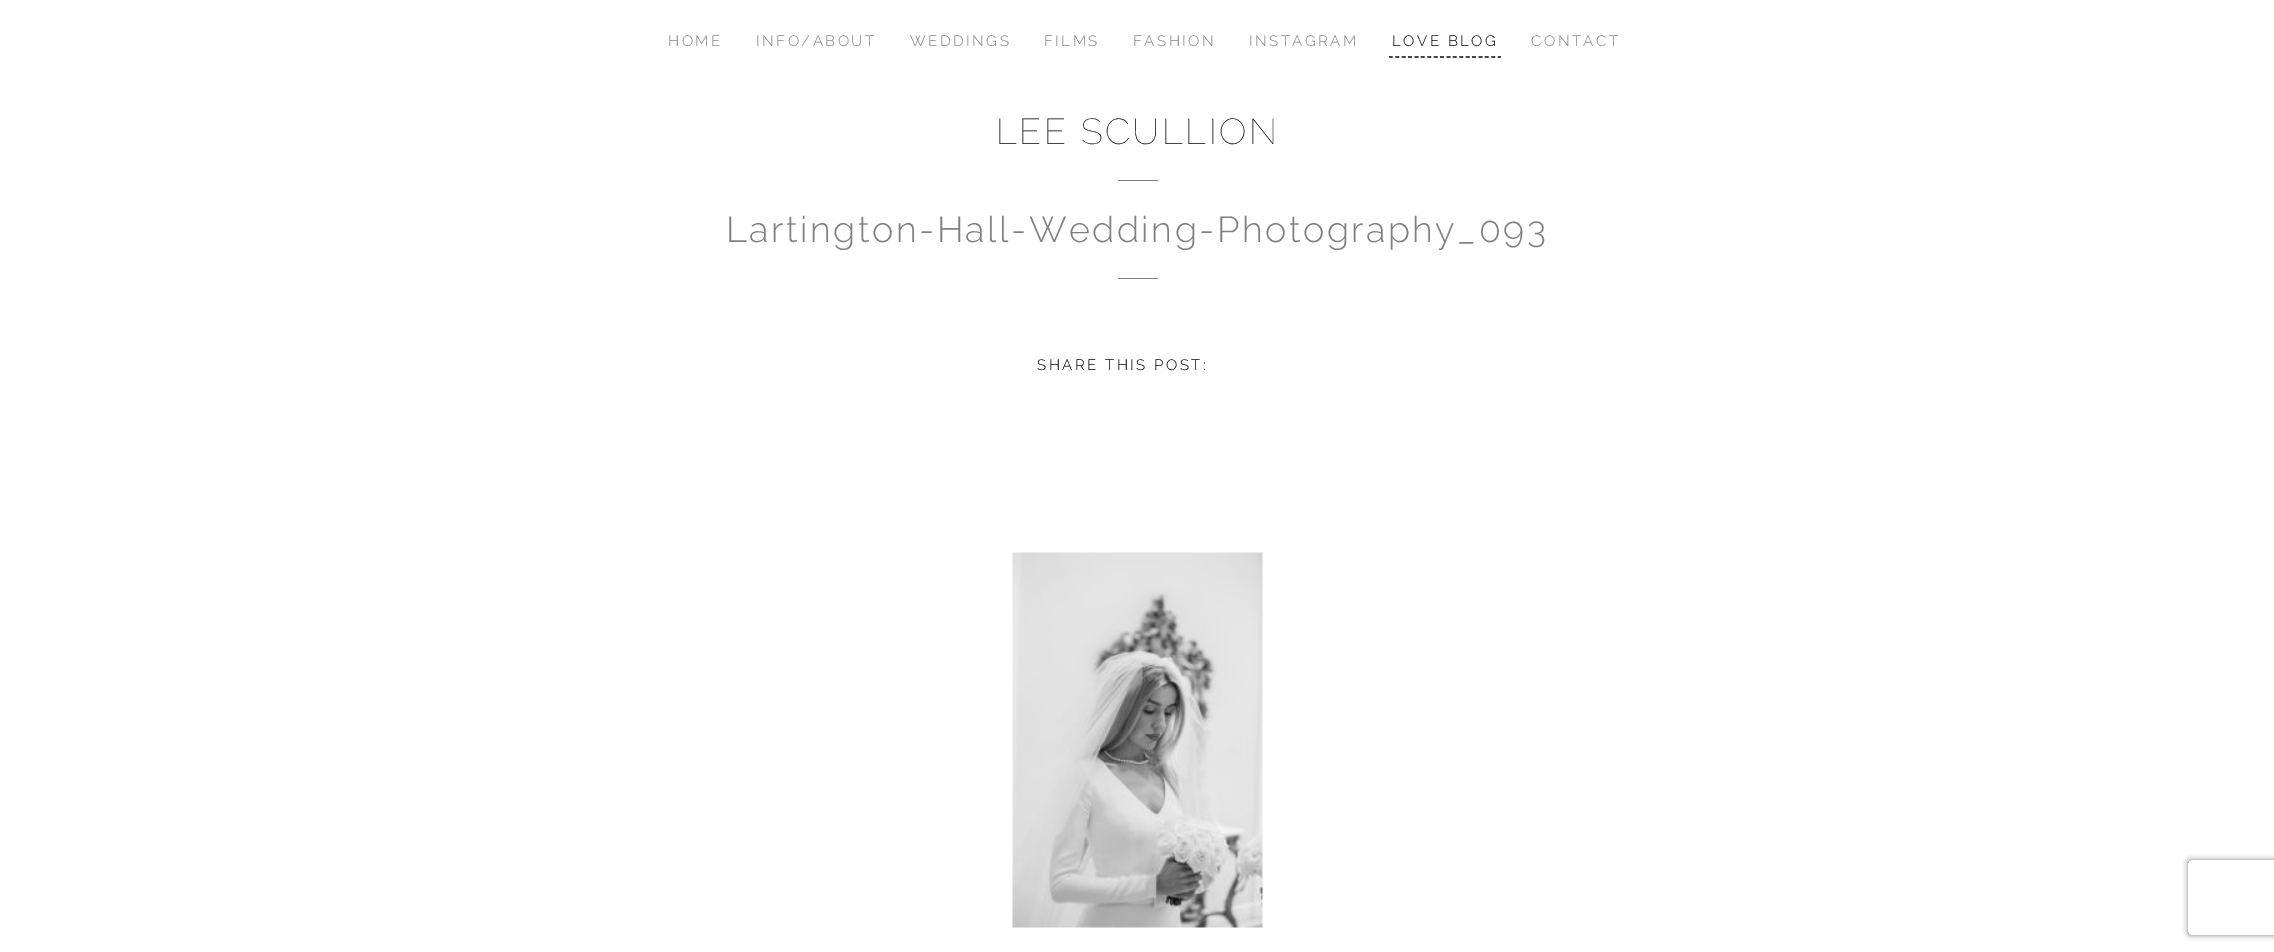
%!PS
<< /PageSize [2274 952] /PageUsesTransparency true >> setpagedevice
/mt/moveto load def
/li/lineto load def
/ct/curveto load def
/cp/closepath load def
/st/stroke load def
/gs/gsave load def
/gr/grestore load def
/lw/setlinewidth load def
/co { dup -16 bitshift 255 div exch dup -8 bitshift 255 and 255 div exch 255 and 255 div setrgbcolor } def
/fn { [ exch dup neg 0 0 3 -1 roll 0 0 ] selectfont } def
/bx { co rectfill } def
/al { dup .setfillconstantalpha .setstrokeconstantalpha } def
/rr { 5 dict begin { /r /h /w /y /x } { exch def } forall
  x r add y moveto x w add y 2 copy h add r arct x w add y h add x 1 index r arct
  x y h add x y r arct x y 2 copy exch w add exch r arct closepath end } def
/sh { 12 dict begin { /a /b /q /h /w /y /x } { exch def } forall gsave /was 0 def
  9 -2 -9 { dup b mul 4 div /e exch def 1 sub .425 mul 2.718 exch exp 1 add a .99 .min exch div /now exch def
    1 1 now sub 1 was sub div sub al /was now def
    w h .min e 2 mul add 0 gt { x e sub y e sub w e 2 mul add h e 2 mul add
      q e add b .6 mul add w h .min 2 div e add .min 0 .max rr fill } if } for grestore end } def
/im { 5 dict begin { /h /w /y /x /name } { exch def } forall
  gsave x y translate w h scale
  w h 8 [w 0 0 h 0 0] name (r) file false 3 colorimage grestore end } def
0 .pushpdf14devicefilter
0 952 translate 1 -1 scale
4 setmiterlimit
0 0 2274 952 16#FFFFFF bx
16#000000 co
1.2 lw
[3.75 2.65] 0 setdash
1389 57 mt 1501 57 li st
1118 180 40 1 16#808080 bx
1118 278 40 1 16#808080 bx
(media/1.raw) 1012 552 251 376 im
gs
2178 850 mt 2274 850 li 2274 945 li 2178 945 li cp 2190.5 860 mt 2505.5 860 li 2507 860 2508 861 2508 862.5 ct 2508 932.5 li 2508 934 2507 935 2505.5 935 ct 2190.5 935 li 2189 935 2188 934 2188 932.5 ct 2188 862.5 li 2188 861 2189 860 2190.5 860 ct cp eoclip newpath
2188 860 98 75 2.5 3 1 sh
gr
/Raleway-Light 15 fn
668 46 mt 2.5 0 (HOME) ashow
756 46 mt 2.5 0 (INFO/ABOUT) ashow
910 46 mt 2.5 0 (WEDDINGS) ashow
1044 46 mt 2.5 0 (FILMS) ashow
1133 46 mt 2.5 0 (FASHION) ashow
1249 46 mt 2.5 0 (INSTAGRAM) ashow
16#000000 co
1392 46 mt 2.5 0 (LOVE BLOG) ashow
16#808080 co
1531 46 mt 2.5 0 (CONTACT) ashow
/Raleway-Thin 36 fn
16#000000 co
996 144 mt 2.5 0 (LEE SCULLION) ashow
/Raleway-Light 36 fn
16#808080 co
726 242 mt 2.5 0 (Lartington-Hall-Wedding-Photography_093) ashow
/Raleway-Light 15 fn
16#000000 co
1037 370 mt 2.5 0 (SHARE THIS POST:) ashow
.poppdf14devicefilter showpage
